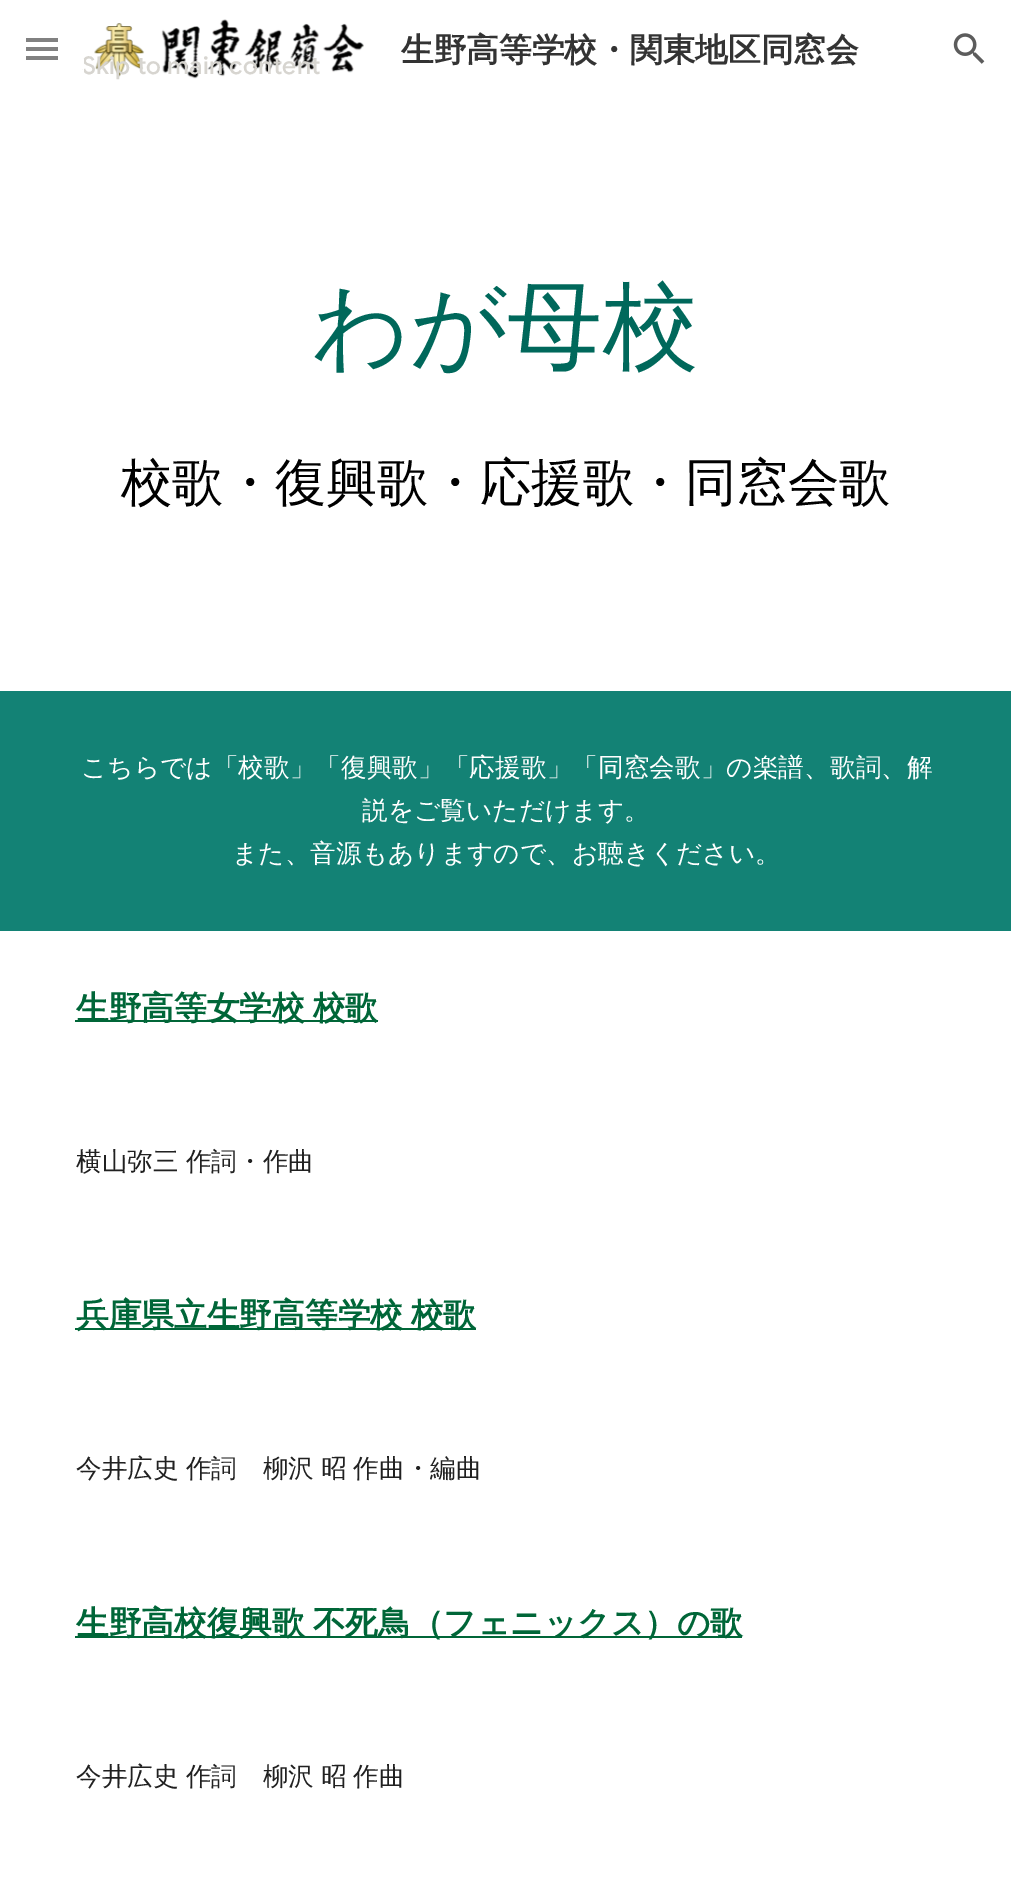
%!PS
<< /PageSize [1011 1898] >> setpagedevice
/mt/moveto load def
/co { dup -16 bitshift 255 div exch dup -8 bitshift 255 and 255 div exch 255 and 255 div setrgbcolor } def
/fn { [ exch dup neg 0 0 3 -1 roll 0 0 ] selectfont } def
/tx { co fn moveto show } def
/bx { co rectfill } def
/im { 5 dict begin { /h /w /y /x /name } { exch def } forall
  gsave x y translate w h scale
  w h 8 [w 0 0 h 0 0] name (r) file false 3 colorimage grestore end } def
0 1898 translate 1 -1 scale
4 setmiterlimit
0 0 1011 1898 16#FFFFFF bx
26 38 32 4 16#818181 bx
26 47 32 4 16#818181 bx
26 56 32 4 16#818181 bx
(media/1.raw) 94 19 270 60 im
(media/2.raw) 953 33 32 31 im
0 691 1011 240 16#138275 bx
75 1020 303 2 16#006638 bx
75 1328 401 2 16#006638 bx
75 1636 667 2 16#006638 bx
(生野高等学校・関東地区同窓会) 401 61 /WenQuanYiZenHei-Bold 32.7 16#333333 tx
(わが母校) 312 359 /WenQuanYiZenHei-Medium 95.5 16#00685B tx
(校歌・復興歌・応援歌・同窓会歌) 121 500 /WenQuanYiZenHei-Medium 51.3 16#000000 tx
(こちらでは「校歌」「復興歌」「応援歌」「同窓会歌」の楽譜、歌詞、解) 81 776 /WenQuanYiZenHei-Medium 25.7 16#FFFFFF tx
(説をご覧いただけます。) 362 819 /WenQuanYiZenHei-Medium 25.7 16#FFFFFF tx
(また、音源もありますので、お聴きください。) 232 862 /WenQuanYiZenHei-Medium 25.7 16#FFFFFF tx
/WenQuanYiZenHei-Bold 32.7 fn
16#006638 co
76 1019 mt -2 0 32 (生野高等女学校 校歌) widthshow
/WenQuanYiZenHei-Medium 25.7 fn
16#212121 co
76 1170 mt -1 0 32 (横山弥三 作詞・作曲) widthshow
/WenQuanYiZenHei-Bold 32.7 fn
16#006638 co
76 1326 mt -2 0 32 (兵庫県立生野高等学校 校歌) widthshow
/WenQuanYiZenHei-Medium 25.7 fn
16#212121 co
76 1477 mt -1 0 32 (今井広史 作詞　柳沢 昭 作曲・編曲) widthshow
/WenQuanYiZenHei-Bold 32.7 fn
16#006638 co
76 1634 mt -2 0 32 (生野高校復興歌 不死鳥（フェニックス）の歌) widthshow
/WenQuanYiZenHei-Medium 25.7 fn
16#212121 co
76 1785 mt -1 0 32 (今井広史 作詞　柳沢 昭 作曲) widthshow
/GoogleSans-Medium 24.5 fn
16#D7D5D0 co
82 74 mt .25 0 (Skip to main content) ashow
83 59 1 13 16#FFFFFF bx
showpage
